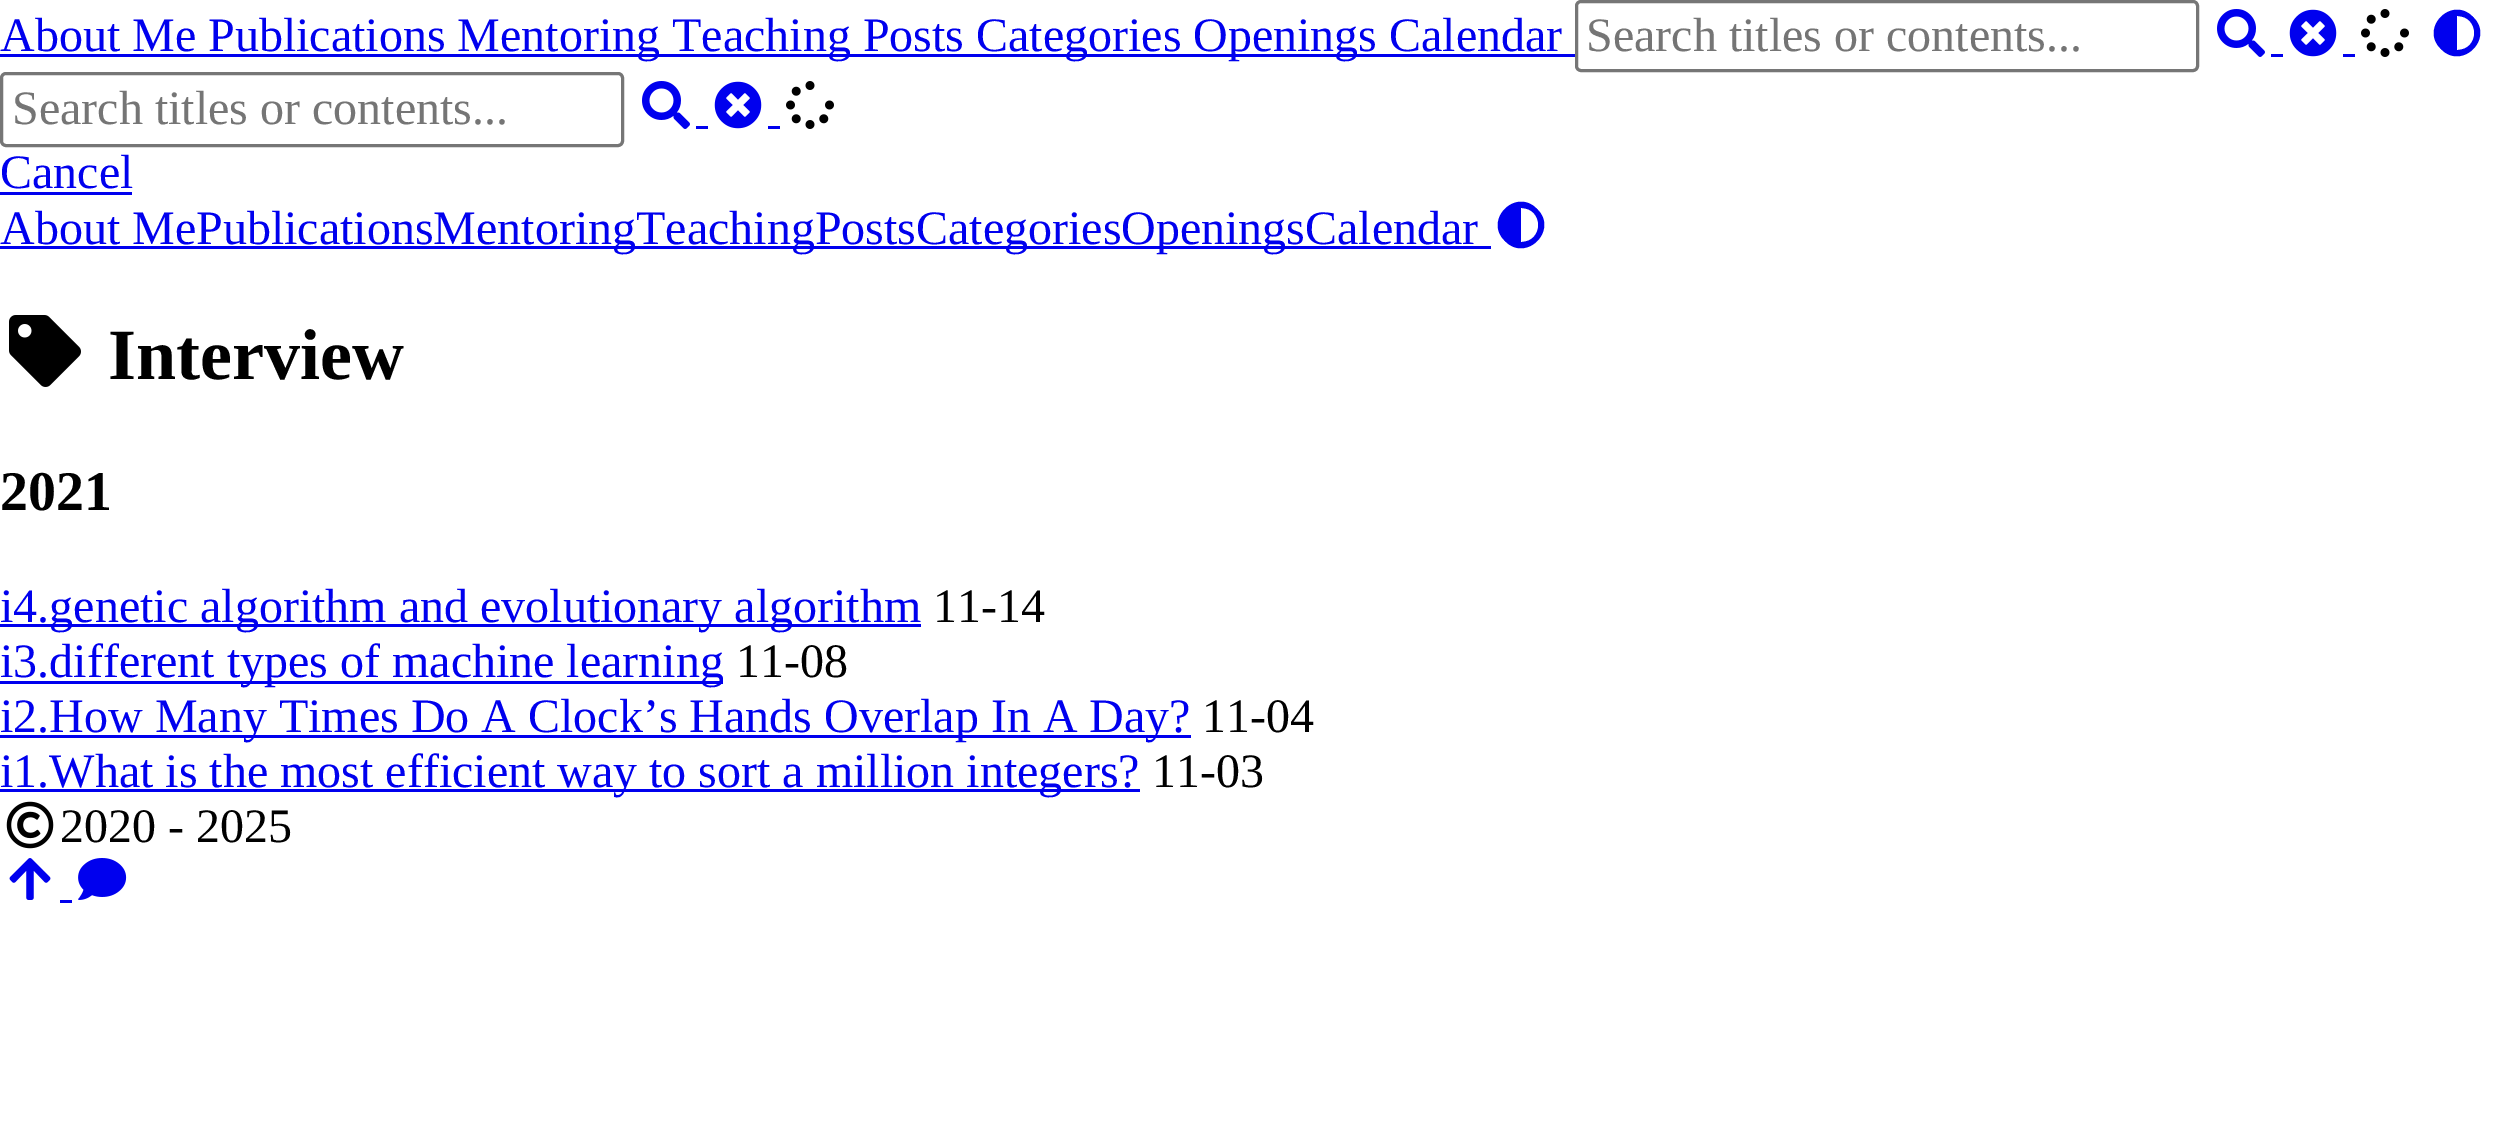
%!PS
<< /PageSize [2505 1147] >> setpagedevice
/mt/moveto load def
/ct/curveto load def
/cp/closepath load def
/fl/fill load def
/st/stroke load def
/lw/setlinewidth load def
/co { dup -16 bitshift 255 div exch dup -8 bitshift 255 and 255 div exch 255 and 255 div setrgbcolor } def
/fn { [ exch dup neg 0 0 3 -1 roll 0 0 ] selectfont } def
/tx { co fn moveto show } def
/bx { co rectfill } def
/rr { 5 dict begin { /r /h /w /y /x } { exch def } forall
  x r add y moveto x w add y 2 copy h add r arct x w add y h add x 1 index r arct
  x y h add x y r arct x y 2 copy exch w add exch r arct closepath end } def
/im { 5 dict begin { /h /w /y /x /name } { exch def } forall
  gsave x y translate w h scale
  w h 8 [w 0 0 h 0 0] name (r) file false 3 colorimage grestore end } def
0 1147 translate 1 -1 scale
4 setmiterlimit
0 0 2505 1147 16#FFFFFF bx
0 54 1575 3 16#0000EE bx
16#767676 co
3 lw
1576.5 1.5 621 69 4.5 rr st
(media/1.raw) 2217 9 48 48 im
2271 54 12 3 16#0000EE bx
(media/2.raw) 2289 9 48 48 im
2343 54 12 3 16#0000EE bx
(media/3.raw) 2361 9 48 48 im
2441 49 mt 2419 28 2452 -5 2473 17 ct 2495 38 2462 71 2441 49 ct cp 2457 50 mt 2480 50 2480 16 2457 16 ct cp fl
16#767676 co
1.5 73.5 621 72 4.5 rr st
(media/1.raw) 642 81 48 48 im
696 126 12 3 16#0000EE bx
(media/2.raw) 714 81 48 48 im
768 126 12 3 16#0000EE bx
(media/3.raw) 786 81 48 48 im
0 192 132 3 16#0000EE bx
0 246 1491 3 16#0000EE bx
1505 241 mt 1483 220 1516 187 1537 209 ct 1559 230 1526 263 1505 241 ct cp 1521 242 mt 1544 242 1544 208 1521 208 ct cp fl
(media/4.raw) 9 315 72 72 im
0 624 921 3 16#0000EE bx
0 681 723 3 16#0000EE bx
0 735 1191 3 16#0000EE bx
0 789 1140 3 16#0000EE bx
(media/5.raw) 6 801 48 48 im
(media/6.raw) 9 858 42 42 im
60 900 12 3 16#0000EE bx
(media/7.raw) 78 858 49 42 im
(About Me Publications Mentoring Teaching Posts Categories Openings Calendar) 0 51 /LiberationSerif-Regular 48 16#0000EE tx
(Search titles or contents...) 1586 51 /LiberationSerif-Regular 48 16#757575 tx
(Search titles or contents...) 12 124 /LiberationSerif-Regular 48 16#757575 tx
(Cancel) 0 188 /LiberationSerif-Regular 48 16#0000EE tx
(About MePublicationsMentoringTeachingPostsCategoriesOpeningsCalendar) 0 244 /LiberationSerif-Regular 48 16#0000EE tx
(Interview) 108 379 /LiberationSerif-Bold 72 16#000000 tx
(2021) 0 510 /LiberationSerif-Bold 56 16#000000 tx
(i4.genetic algorithm and evolutionary algorithm) 0 622 /LiberationSerif-Regular 48 16#0000EE tx
(11-14) 933 622 /LiberationSerif-Regular 48 16#000000 tx
(i3.different types of machine learning) 0 677 /LiberationSerif-Regular 48 16#0000EE tx
(11-08) 736 677 /LiberationSerif-Regular 48 16#000000 tx
(i2.How Many Times Do A Clock’s Hands Overlap In A Day?) 0 732 /LiberationSerif-Regular 48 16#0000EE tx
(11-04) 1202 732 /LiberationSerif-Regular 48 16#000000 tx
(i1.What is the most efficient way to sort a million integers?) 0 787 /LiberationSerif-Regular 48 16#0000EE tx
(11-03) 1152 787 /LiberationSerif-Regular 48 16#000000 tx
(2020 - 2025) 60 842 /LiberationSerif-Regular 48 16#000000 tx
showpage
